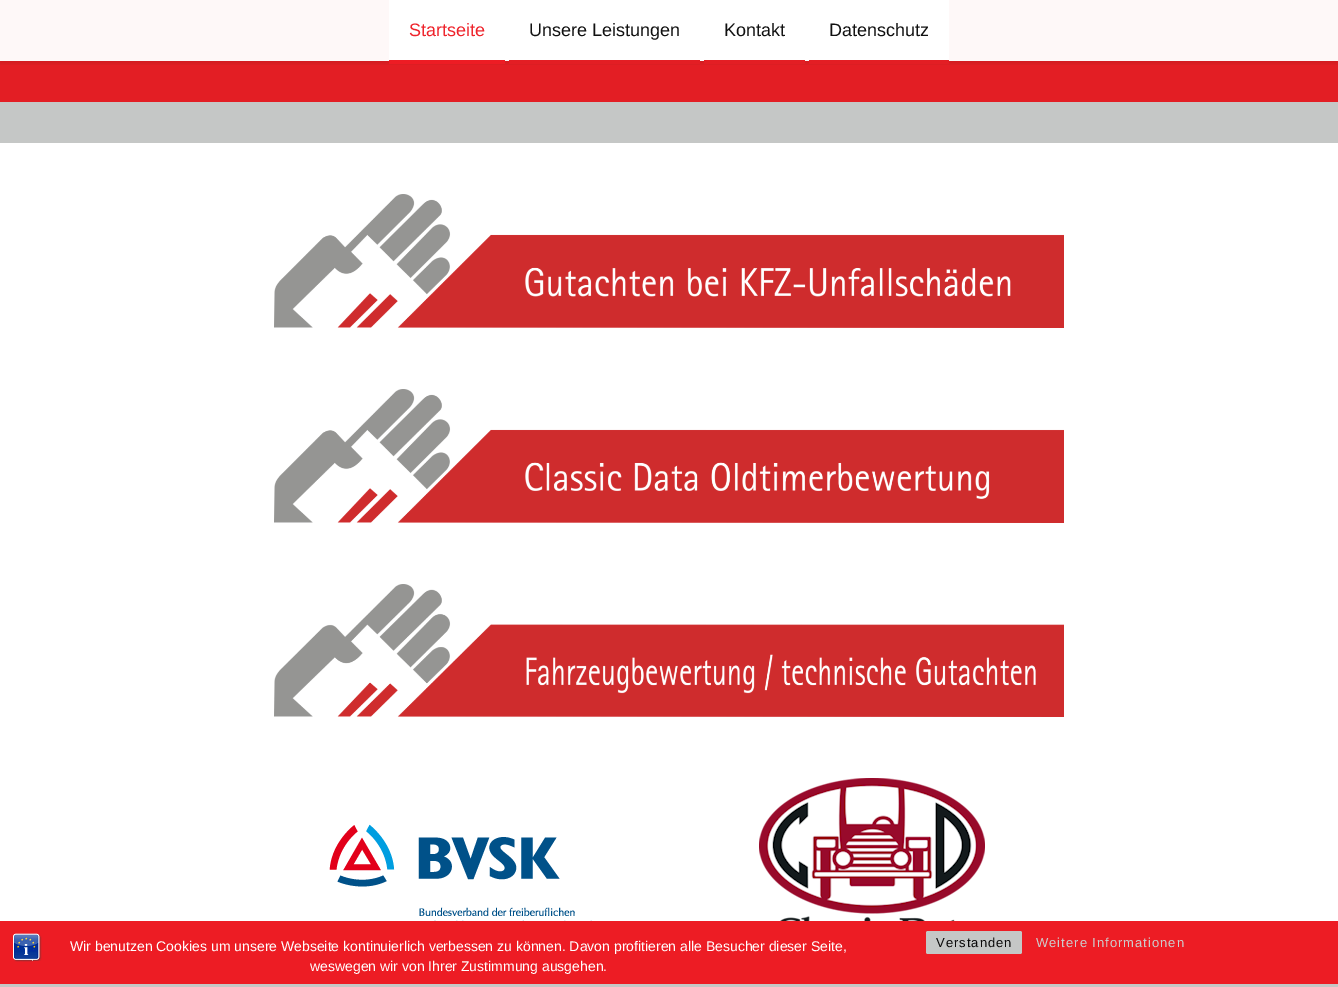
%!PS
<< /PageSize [1338 987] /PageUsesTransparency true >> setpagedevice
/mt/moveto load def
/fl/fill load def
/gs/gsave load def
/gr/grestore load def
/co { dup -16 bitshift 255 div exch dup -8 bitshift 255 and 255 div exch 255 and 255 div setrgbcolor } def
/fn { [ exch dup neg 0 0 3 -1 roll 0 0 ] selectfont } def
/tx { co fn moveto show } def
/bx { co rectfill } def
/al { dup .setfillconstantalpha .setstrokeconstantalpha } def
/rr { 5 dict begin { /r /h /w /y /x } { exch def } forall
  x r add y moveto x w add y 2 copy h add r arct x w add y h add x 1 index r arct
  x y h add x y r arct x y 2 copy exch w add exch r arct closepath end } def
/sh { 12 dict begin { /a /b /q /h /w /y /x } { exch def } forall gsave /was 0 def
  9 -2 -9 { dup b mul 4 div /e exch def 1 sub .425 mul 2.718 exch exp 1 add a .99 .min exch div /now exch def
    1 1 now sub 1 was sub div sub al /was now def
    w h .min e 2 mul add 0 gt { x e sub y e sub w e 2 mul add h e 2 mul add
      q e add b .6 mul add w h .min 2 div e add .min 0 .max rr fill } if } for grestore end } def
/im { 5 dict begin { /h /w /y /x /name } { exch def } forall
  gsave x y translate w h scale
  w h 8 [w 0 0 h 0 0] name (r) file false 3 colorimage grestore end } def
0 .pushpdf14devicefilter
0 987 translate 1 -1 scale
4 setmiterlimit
0 0 1338 987 16#E31E24 bx
0 0 1338 61 16#FEF8F8 bx
0 102 1338 41 16#C5C7C6 bx
0 143 1338 778 16#FFFFFF bx
(media/1.raw) 274 194 790 134 im
(media/2.raw) 274 389 790 134 im
(media/3.raw) 274 584 790 133 im
(media/4.raw) 329 824 263 97 im
(media/5.raw) 759 778 226 143 im
gs
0 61 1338 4 rectclip
16#070101 co
0 2 1338 61 0 2.5 .1 sh
gr
0.97 al
389 0 560 60 16#FFFFFF bx
1 al
389 60 116 4 16#ED1C24 bx
509 60 191 4 16#E31E24 bx
704 60 101 4 16#E31E24 bx
809 60 140 4 16#E31E24 bx
0 921 1338 63 16#ED1C24 bx
0 984 1338 3 16#C5C7C6 bx
(media/6.raw) 13 933 29 29 im
926 931 96 23 2 rr fl
(Startseite) 409 36 /LiberationSans-Regular 18 16#EE232B tx
(Unsere Leistungen) 529 36 /LiberationSans-Regular 18 16#111111 tx
(Kontakt) 724 36 /LiberationSans-Regular 18 16#111111 tx
(Datenschutz) 829 36 /LiberationSans-Regular 18 16#111111 tx
(Wir benutzen Cookies um unsere Webseite kontinuierlich verbessen zu können. Davon profitieren alle Besucher dieser Seite,) 70 951 /LiberationSans-Regular 14 16#FFFFFF tx
(weswegen wir von Ihrer Zustimmung ausgehen.) 310 971 /LiberationSans-Regular 14 16#FFFFFF tx
/LiberationSans-Regular 13 fn
16#0A0909 co
936 947 mt 1 0 (Verstanden) ashow
16#CCCCCC co
1036 947 mt 1 0 (Weitere Informationen) ashow
.poppdf14devicefilter showpage
